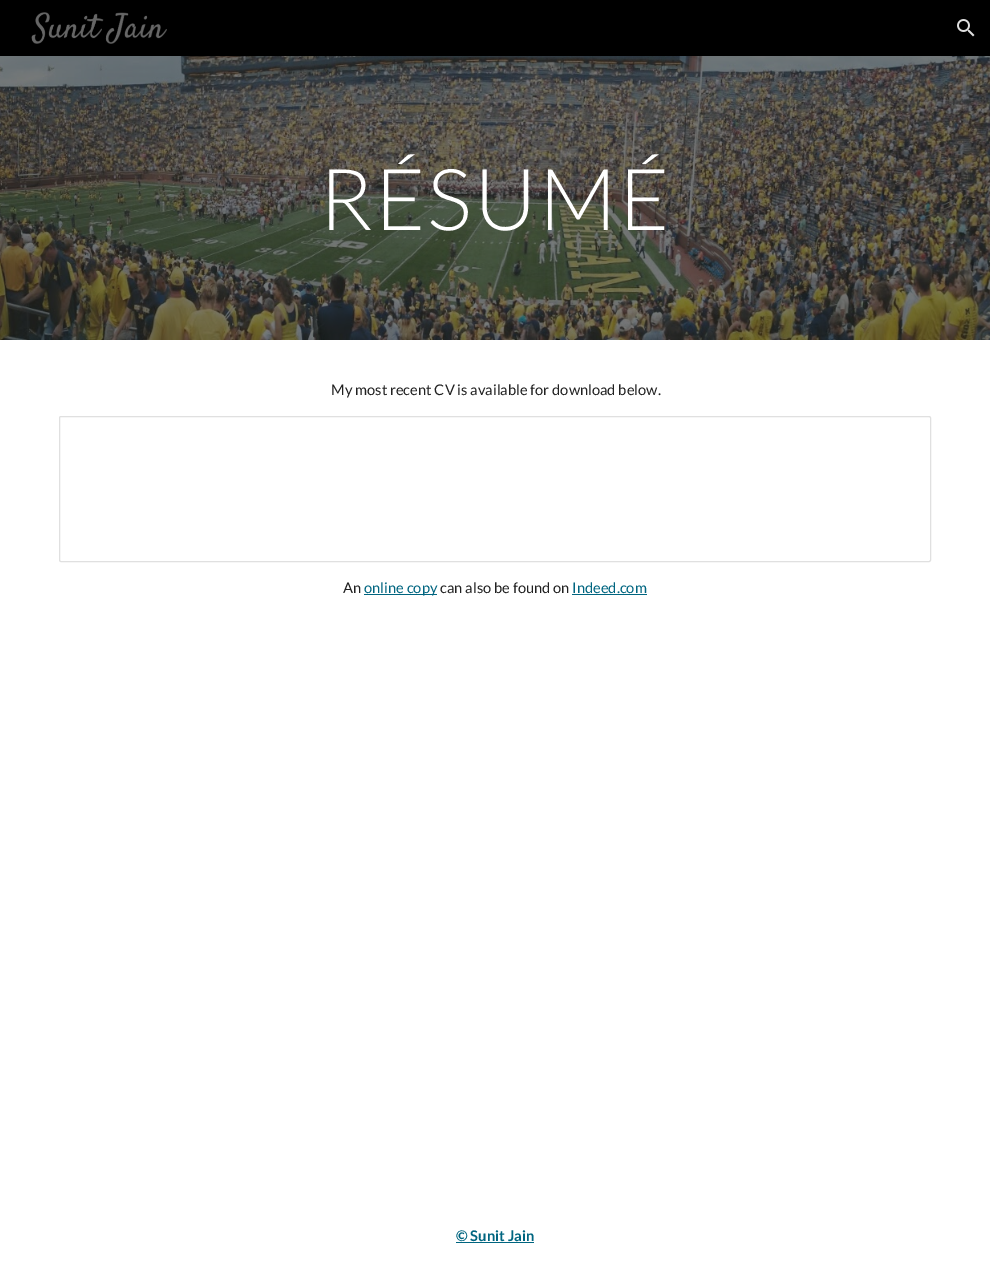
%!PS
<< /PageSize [990 1280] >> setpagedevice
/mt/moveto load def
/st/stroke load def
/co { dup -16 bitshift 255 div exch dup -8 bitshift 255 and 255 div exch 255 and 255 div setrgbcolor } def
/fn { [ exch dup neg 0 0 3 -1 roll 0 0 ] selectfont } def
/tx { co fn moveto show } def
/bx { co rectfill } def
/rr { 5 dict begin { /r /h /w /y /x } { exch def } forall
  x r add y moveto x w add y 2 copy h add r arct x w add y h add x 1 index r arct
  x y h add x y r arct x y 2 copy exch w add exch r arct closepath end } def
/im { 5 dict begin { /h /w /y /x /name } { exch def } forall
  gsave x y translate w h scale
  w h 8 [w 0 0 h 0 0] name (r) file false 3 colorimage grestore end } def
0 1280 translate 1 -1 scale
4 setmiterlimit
0 0 990 1280 16#FFFFFF bx
0 0 990 56 16#000000 bx
(media/1.raw) 31 12 136 32 im
(media/2.raw) 957 19 18 18 im
(media/3.raw) 0 56 990 284 im
16#E0E0E0 co
59.5 416.5 871 145 1.5 rr st
364 594 73 1 16#006580 bx
572 594 75 1 16#006580 bx
456 1242 78 1 16#006580 bx
/Lato-Light 85.5 fn
16#FFFFFF co
319 230 mt 2 0 (RÉSUMÉ) ashow
(My most recent CV is available for download below.) 331 395 /Lato-Regular 14.7 16#212121 tx
(An) 343 593 /Lato-Regular 14.7 16#212121 tx
(online copy) 364 593 /Lato-Regular 14.7 16#006580 tx
(can also be found on) 440 593 /Lato-Regular 14.7 16#212121 tx
(Indeed.com) 572 593 /Lato-Regular 14.7 16#006580 tx
(© Sunit Jain) 456 1241 /Lato-Bold 14.7 16#006580 tx
showpage
